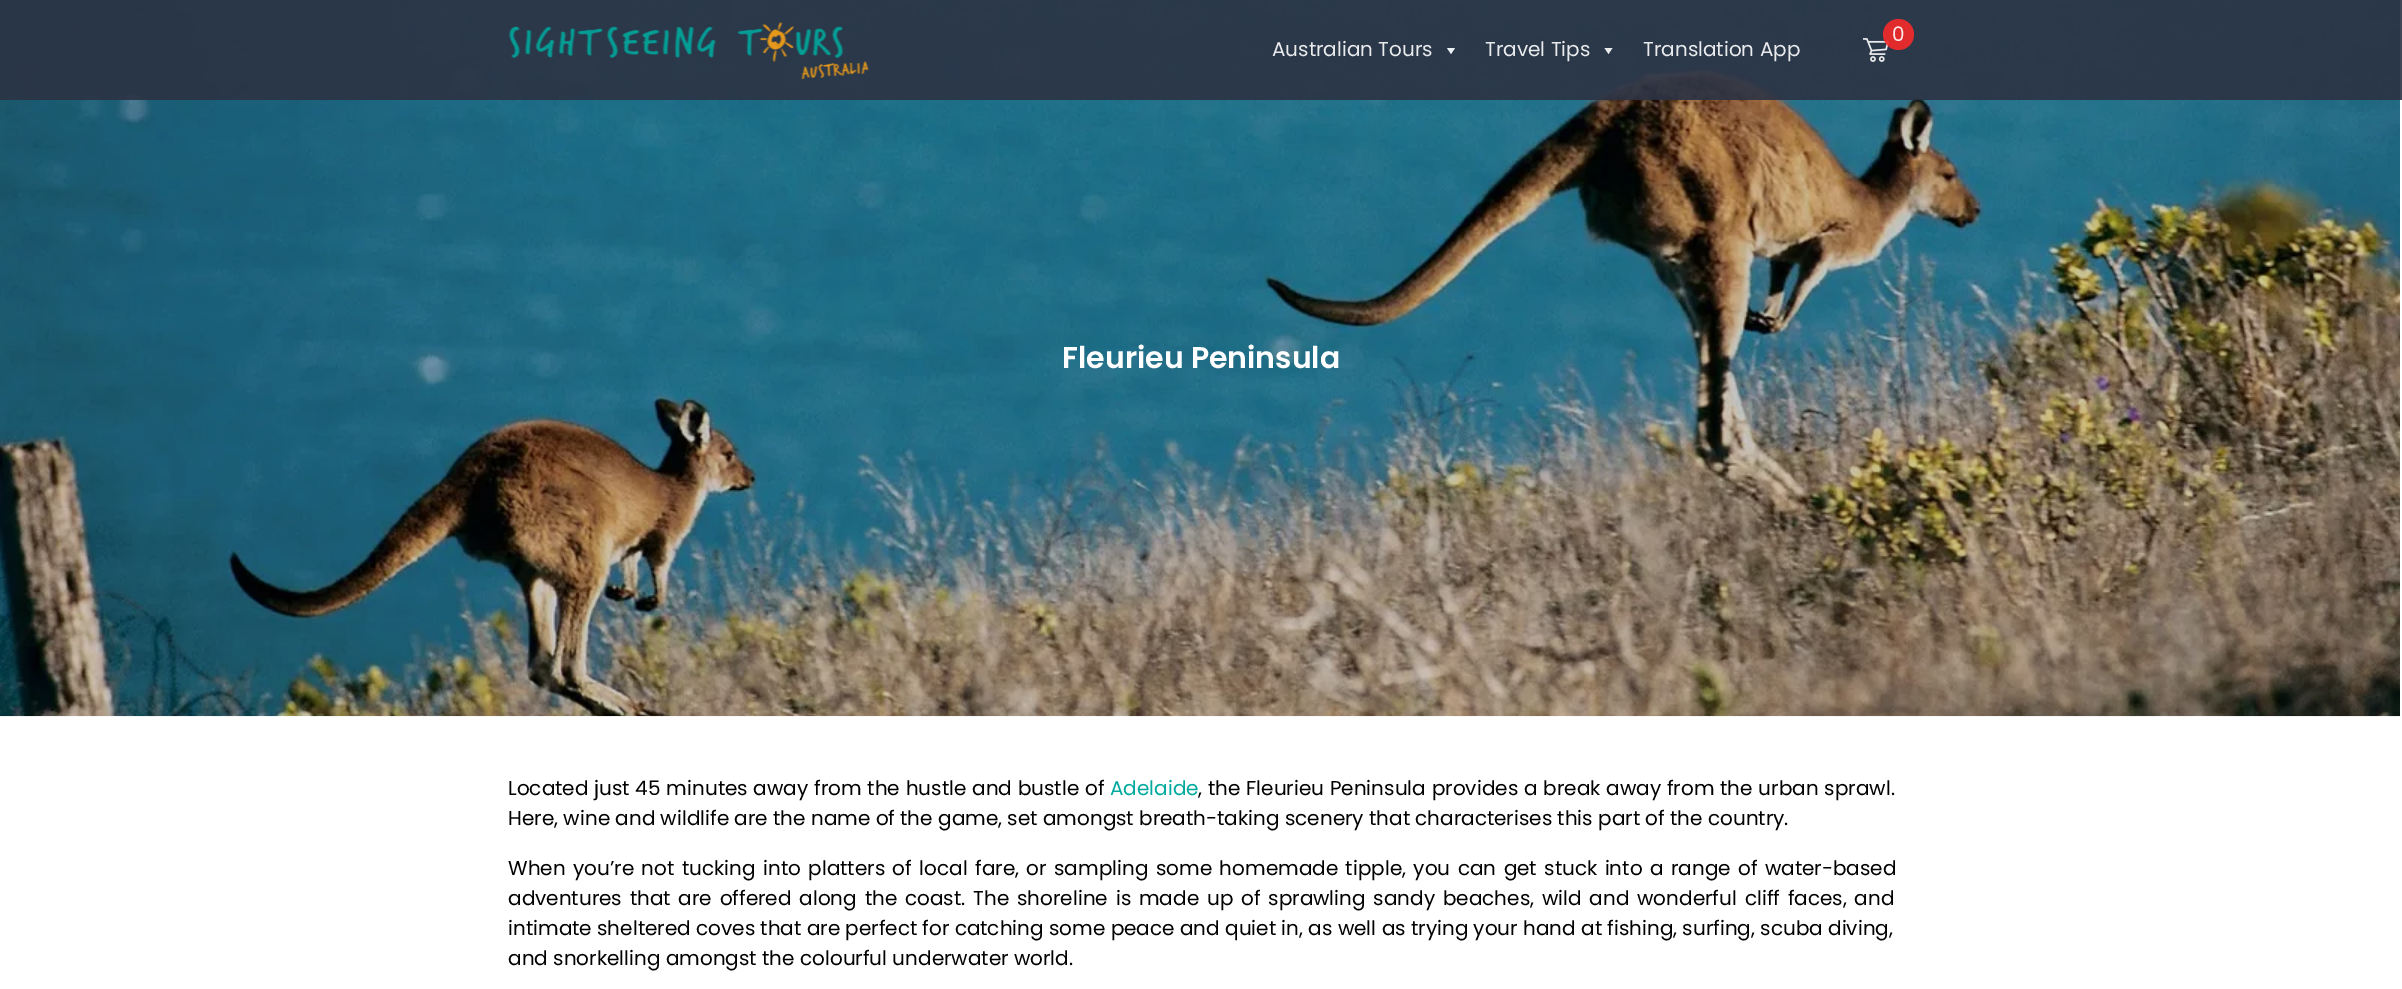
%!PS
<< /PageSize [2402 989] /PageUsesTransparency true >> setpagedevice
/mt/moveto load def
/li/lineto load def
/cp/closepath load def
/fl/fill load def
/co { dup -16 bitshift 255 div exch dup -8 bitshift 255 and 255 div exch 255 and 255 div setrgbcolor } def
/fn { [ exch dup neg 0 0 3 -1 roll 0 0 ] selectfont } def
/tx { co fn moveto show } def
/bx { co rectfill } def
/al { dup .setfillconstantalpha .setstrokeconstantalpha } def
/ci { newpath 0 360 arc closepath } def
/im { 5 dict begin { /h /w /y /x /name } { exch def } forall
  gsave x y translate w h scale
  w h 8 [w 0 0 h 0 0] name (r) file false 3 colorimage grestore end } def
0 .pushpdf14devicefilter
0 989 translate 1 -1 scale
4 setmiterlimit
0 0 2402 989 16#FFFFFF bx
(media/3.raw) 0 0 2400 717 im
0.9 al
0 0 2402 100 16#2B3243 bx
1 al
(media/1.raw) 508 22 361 58 im
(media/2.raw) 1863 38 26 24 im
0.9 al
16#F52929 co
1898.5 34.5 15.5 ci fl
1 al
16#E9F1F4 co
1455 48 mt 1451 54 li 1447 48 li cp fl
16#EAEBED co
1612.5 48 mt 1608.5 54 li 1604.5 48 li cp fl
(0) 1892 41 /Poppins-Regular 20 16#FCEAEA tx
(Australian Tours) 1272 56 /Poppins-Regular 20 16#EAEBED tx
(Travel Tips) 1485 56 /Poppins-Regular 20 16#EAEBED tx
(Translation App) 1643 56 /Poppins-Regular 20 16#EAEBED tx
(Fleurieu Peninsula) 1062 368 /Poppins-SemiBold 30 16#FFFFFF tx
/Poppins-Regular 20 fn
16#000000 co
508 795 mt .5 0 32 (Located just 45 minutes away from the hustle and bustle of) widthshow
(Adelaide) 1110 795 /Poppins-Regular 20 16#00A99D tx
16#000000 co
1198 795 mt .5 0 32 (, the Fleurieu Peninsula provides a break away from the urban sprawl.) widthshow
(Here, wine and wildlife are the name of the game, set amongst breath-taking scenery that characterises this part of the country.) 508 825 /Poppins-Regular 20 16#000000 tx
508 875 mt 2.1 0 32 (When you’re not tucking into platters of local fare, or sampling some homemade tipple, you can get stuck into a range of water-based) widthshow
508 905 mt 2.5 0 32 (adventures that are offered along the coast. The shoreline is made up of sprawling sandy beaches, wild and wonderful cliff faces, and) widthshow
(intimate sheltered coves that are perfect for catching some peace and quiet in, as well as trying your hand at fishing, surfing, scuba diving,) 508 935 /Poppins-Regular 20 16#000000 tx
(and snorkelling amongst the colourful underwater world.) 508 965 /Poppins-Regular 20 16#000000 tx
.poppdf14devicefilter showpage
